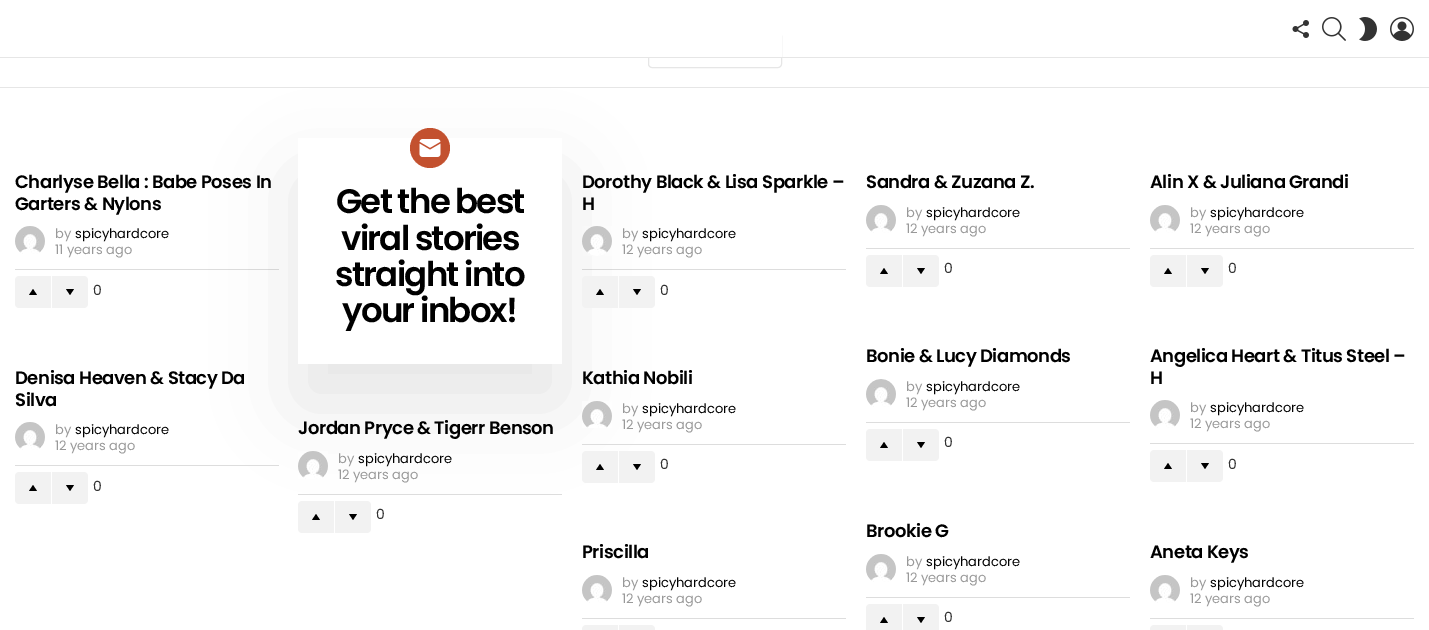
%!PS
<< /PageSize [1429 630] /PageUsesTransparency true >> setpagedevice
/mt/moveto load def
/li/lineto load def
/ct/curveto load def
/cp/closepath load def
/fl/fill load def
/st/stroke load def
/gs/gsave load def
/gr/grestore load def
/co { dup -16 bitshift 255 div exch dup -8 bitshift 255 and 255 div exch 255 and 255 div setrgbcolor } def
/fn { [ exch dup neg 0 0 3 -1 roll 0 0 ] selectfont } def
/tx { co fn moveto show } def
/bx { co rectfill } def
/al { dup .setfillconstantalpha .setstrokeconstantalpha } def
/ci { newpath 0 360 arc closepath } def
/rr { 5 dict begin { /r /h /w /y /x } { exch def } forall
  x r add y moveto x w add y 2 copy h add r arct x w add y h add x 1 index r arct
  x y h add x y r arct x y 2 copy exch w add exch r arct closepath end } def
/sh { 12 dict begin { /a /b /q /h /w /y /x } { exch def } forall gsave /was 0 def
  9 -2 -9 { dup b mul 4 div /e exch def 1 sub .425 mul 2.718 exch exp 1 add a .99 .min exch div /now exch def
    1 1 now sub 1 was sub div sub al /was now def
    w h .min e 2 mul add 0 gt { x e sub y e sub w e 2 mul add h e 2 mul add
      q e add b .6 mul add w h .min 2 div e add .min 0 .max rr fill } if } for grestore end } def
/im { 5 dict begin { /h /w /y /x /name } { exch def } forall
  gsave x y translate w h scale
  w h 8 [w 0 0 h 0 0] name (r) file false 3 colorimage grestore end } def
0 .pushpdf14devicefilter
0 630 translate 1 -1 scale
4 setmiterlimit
0 0 1429 630 16#FFFFFF bx
(media/1.raw) 1292 20 17 18 im
(media/2.raw) 1322 17 24 24 im
(media/3.raw) 1359 17 18 24 im
(media/4.raw) 1390 17 24 24 im
gs
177 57 mt 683 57 li 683 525 li 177 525 li cp 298 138 mt 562 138 li 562 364 li 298 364 li cp eoclip newpath
16#000000 co
298 178 264 226 0 40 .1 sh
gr
16#E6E6E6 co
648.5 32.5 133 35 3.5 rr st
648 32 134 25 16#FFFFFF bx
0 57 1429 1 16#E6E6E6 bx
0 87 1429 1 16#E6E6E6 bx
(media/5.raw) 15 226 30 28 im
0.17 al
15 269 264 1 16#333333 bx
1 al
16#F2F2F2 co
19 276 mt 51 276 li 51 308 li 19 308 li 17 308 15 306 15 304 ct 15 280 li 15 278 17 276 19 276 ct cp fl
16#000000 co
33 289 mt 29 295 li 37 295 li cp fl
16#F2F2F2 co
52 276 mt 84 276 li 86 276 88 278 88 280 ct 88 304 li 88 306 86 308 84 308 ct 52 308 li cp fl
16#000000 co
70 295 mt 66 289 li 74 289 li cp fl
16#C3512F co
430 148 20 ci fl
(media/6.raw) 419 139 22 18 im
(media/7.raw) 582 226 30 30 im
0.17 al
582 269 264 1 16#333333 bx
1 al
16#F2F2F2 co
586 276 mt 618 276 li 618 308 li 586 308 li 584 308 582 306 582 304 ct 582 280 li 582 278 584 276 586 276 ct cp fl
16#000000 co
600 289 mt 596 295 li 604 295 li cp fl
16#F2F2F2 co
619 276 mt 651 276 li 653 276 655 278 655 280 ct 655 304 li 655 306 653 308 651 308 ct 619 308 li cp fl
16#000000 co
637 295 mt 633 289 li 641 289 li cp fl
(media/5.raw) 866 205 30 28 im
866 248 264 1 16#DDDDDD bx
16#F2F2F2 co
870 255 mt 902 255 li 902 287 li 870 287 li 868 287 866 285 866 283 ct 866 259 li 866 257 868 255 870 255 ct cp fl
16#000000 co
884 268 mt 880 274 li 888 274 li cp fl
16#F2F2F2 co
903 255 mt 935 255 li 937 255 939 257 939 259 ct 939 283 li 939 285 937 287 935 287 ct 903 287 li cp fl
16#000000 co
921 274 mt 917 268 li 925 268 li cp fl
(media/5.raw) 1150 205 30 28 im
1150 248 264 1 16#DDDDDD bx
16#F2F2F2 co
1154 255 mt 1186 255 li 1186 287 li 1154 287 li 1152 287 1150 285 1150 283 ct 1150 259 li 1150 257 1152 255 1154 255 ct cp fl
16#000000 co
1168 268 mt 1164 274 li 1172 274 li cp fl
16#F2F2F2 co
1187 255 mt 1219 255 li 1221 255 1223 257 1223 259 ct 1223 283 li 1223 285 1221 287 1219 287 ct 1187 287 li cp fl
16#000000 co
1205 274 mt 1201 268 li 1209 268 li cp fl
(media/5.raw) 15 422 30 28 im
15 465 264 1 16#DDDDDD bx
16#F2F2F2 co
19 472 mt 51 472 li 51 504 li 19 504 li 17 504 15 502 15 500 ct 15 476 li 15 474 17 472 19 472 ct cp fl
16#000000 co
33 485 mt 29 491 li 37 491 li cp fl
16#F2F2F2 co
52 472 mt 84 472 li 86 472 88 474 88 476 ct 88 500 li 88 502 86 504 84 504 ct 52 504 li cp fl
16#000000 co
70 491 mt 66 485 li 74 485 li cp fl
(media/8.raw) 298 451 30 28 im
298 494 264 1 16#DDDDDD bx
16#F2F2F2 co
302 501 mt 334 501 li 334 533 li 302 533 li 300 533 298 531 298 529 ct 298 505 li 298 503 300 501 302 501 ct cp fl
16#000000 co
316 514 mt 312 520 li 320 520 li cp fl
16#F2F2F2 co
335 501 mt 367 501 li 369 501 371 503 371 505 ct 371 529 li 371 531 369 533 367 533 ct 335 533 li cp fl
16#000000 co
353 520 mt 349 514 li 357 514 li cp fl
(media/9.raw) 582 401 30 27 im
582 444 264 1 16#DDDDDD bx
16#F2F2F2 co
586 451 mt 618 451 li 618 483 li 586 483 li 584 483 582 481 582 479 ct 582 455 li 582 453 584 451 586 451 ct cp fl
16#000000 co
600 464 mt 596 470 li 604 470 li cp fl
16#F2F2F2 co
619 451 mt 651 451 li 653 451 655 453 655 455 ct 655 479 li 655 481 653 483 651 483 ct 619 483 li cp fl
16#000000 co
637 470 mt 633 464 li 641 464 li cp fl
(media/10.raw) 866 379 30 28 im
866 422 264 1 16#DDDDDD bx
16#F2F2F2 co
870 429 mt 902 429 li 902 461 li 870 461 li 868 461 866 459 866 457 ct 866 433 li 866 431 868 429 870 429 ct cp fl
16#000000 co
884 442 mt 880 448 li 888 448 li cp fl
16#F2F2F2 co
903 429 mt 935 429 li 937 429 939 431 939 433 ct 939 457 li 939 459 937 461 935 461 ct 903 461 li cp fl
16#000000 co
921 448 mt 917 442 li 925 442 li cp fl
(media/5.raw) 1150 400 30 28 im
1150 443 264 1 16#DDDDDD bx
16#F2F2F2 co
1154 450 mt 1186 450 li 1186 482 li 1154 482 li 1152 482 1150 480 1150 478 ct 1150 454 li 1150 452 1152 450 1154 450 ct cp fl
16#000000 co
1168 463 mt 1164 469 li 1172 469 li cp fl
16#F2F2F2 co
1187 450 mt 1219 450 li 1221 450 1223 452 1223 454 ct 1223 478 li 1223 480 1221 482 1219 482 ct 1187 482 li cp fl
16#000000 co
1205 469 mt 1201 463 li 1209 463 li cp fl
(media/5.raw) 582 575 30 28 im
582 618 264 1 16#DDDDDD bx
16#F2F2F2 co
586 625 mt 618 625 li 618 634 li 586 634 li 584 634 582 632 582 630 ct 582 629 li 582 627 584 625 586 625 ct cp fl
619 625 mt 651 625 li 653 625 655 627 655 629 ct 655 630 li 655 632 653 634 651 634 ct 619 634 li cp fl
(media/5.raw) 866 554 30 28 im
866 597 264 1 16#DDDDDD bx
16#F2F2F2 co
870 604 mt 902 604 li 902 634 li 870 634 li 868 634 866 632 866 630 ct 866 608 li 866 606 868 604 870 604 ct cp fl
16#000000 co
884 617 mt 880 623 li 888 623 li cp fl
16#F2F2F2 co
903 604 mt 935 604 li 937 604 939 606 939 608 ct 939 630 li 939 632 937 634 935 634 ct 903 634 li cp fl
16#000000 co
921 623 mt 917 617 li 925 617 li cp fl
(media/5.raw) 1150 575 30 28 im
1150 618 264 1 16#DDDDDD bx
16#F2F2F2 co
1154 625 mt 1186 625 li 1186 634 li 1154 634 li 1152 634 1150 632 1150 630 ct 1150 629 li 1150 627 1152 625 1154 625 ct cp fl
1187 625 mt 1219 625 li 1221 625 1223 627 1223 629 ct 1223 630 li 1223 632 1221 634 1219 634 ct 1187 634 li cp fl
/Poppins-SemiBold 18 fn
16#000000 co
15 188 mt -.45 0 (Charlyse Bella : Babe Poses In) ashow
15 210 mt -.45 0 (Garters & Nylons) ashow
(by) 55 238 /Poppins-Regular 13 16#999999 tx
(spicyhardcore) 75 238 /Poppins-Regular 13 16#000000 tx
(11 years ago) 55 254 /Poppins-Regular 13 16#999999 tx
(0) 93 295 /Poppins-Regular 14 16#333333 tx
/Poppins-SemiBold 34 fn
16#000000 co
336 213 mt -1.75 0 (Get the best) ashow
341 250 mt -1.75 0 (viral stories) ashow
335 286 mt -1.75 0 (straight into) ashow
342 322 mt -1.75 0 (your inbox!) ashow
/Poppins-SemiBold 18 fn
582 188 mt -.45 0 (Dorothy Black & Lisa Sparkle –) ashow
582 210 mt -.45 0 (H) ashow
(by) 622 238 /Poppins-Regular 13 16#999999 tx
(spicyhardcore) 642 238 /Poppins-Regular 13 16#000000 tx
(12 years ago) 622 254 /Poppins-Regular 13 16#999999 tx
(0) 660 295 /Poppins-Regular 14 16#333333 tx
/Poppins-SemiBold 18 fn
16#000000 co
866 188 mt -.45 0 (Sandra & Zuzana Z.) ashow
(by) 906 217 /Poppins-Regular 13 16#999999 tx
(spicyhardcore) 926 217 /Poppins-Regular 13 16#000000 tx
(12 years ago) 906 233 /Poppins-Regular 13 16#999999 tx
(0) 944 273 /Poppins-Regular 14 16#333333 tx
/Poppins-SemiBold 18 fn
16#000000 co
1150 188 mt -.45 0 (Alin X & Juliana Grandi) ashow
(by) 1190 217 /Poppins-Regular 13 16#999999 tx
(spicyhardcore) 1210 217 /Poppins-Regular 13 16#000000 tx
(12 years ago) 1190 233 /Poppins-Regular 13 16#999999 tx
(0) 1228 273 /Poppins-Regular 14 16#333333 tx
/Poppins-SemiBold 18 fn
16#000000 co
15 384 mt -.45 0 (Denisa Heaven & Stacy Da) ashow
15 406 mt -.45 0 (Silva) ashow
(by) 55 434 /Poppins-Regular 13 16#999999 tx
(spicyhardcore) 75 434 /Poppins-Regular 13 16#000000 tx
(12 years ago) 55 450 /Poppins-Regular 13 16#999999 tx
(0) 93 491 /Poppins-Regular 14 16#333333 tx
/Poppins-SemiBold 18 fn
16#000000 co
298 434 mt -.45 0 (Jordan Pryce & Tigerr Benson) ashow
(by) 338 463 /Poppins-Regular 13 16#999999 tx
(spicyhardcore) 358 463 /Poppins-Regular 13 16#000000 tx
(12 years ago) 338 479 /Poppins-Regular 13 16#999999 tx
(0) 376 519 /Poppins-Regular 14 16#333333 tx
/Poppins-SemiBold 18 fn
16#000000 co
582 384 mt -.45 0 (Kathia Nobili) ashow
(by) 622 413 /Poppins-Regular 13 16#999999 tx
(spicyhardcore) 642 413 /Poppins-Regular 13 16#000000 tx
(12 years ago) 622 429 /Poppins-Regular 13 16#999999 tx
(0) 660 469 /Poppins-Regular 14 16#333333 tx
/Poppins-SemiBold 18 fn
16#000000 co
866 362 mt -.45 0 (Bonie & Lucy Diamonds) ashow
(by) 906 391 /Poppins-Regular 13 16#999999 tx
(spicyhardcore) 926 391 /Poppins-Regular 13 16#000000 tx
(12 years ago) 906 407 /Poppins-Regular 13 16#999999 tx
(0) 944 447 /Poppins-Regular 14 16#333333 tx
/Poppins-SemiBold 18 fn
16#000000 co
1150 362 mt -.45 0 (Angelica Heart & Titus Steel –) ashow
1150 384 mt -.45 0 (H) ashow
(by) 1190 412 /Poppins-Regular 13 16#999999 tx
(spicyhardcore) 1210 412 /Poppins-Regular 13 16#000000 tx
(12 years ago) 1190 428 /Poppins-Regular 13 16#999999 tx
(0) 1228 469 /Poppins-Regular 14 16#333333 tx
/Poppins-SemiBold 18 fn
16#000000 co
582 558 mt -.45 0 (Priscilla) ashow
(by) 622 587 /Poppins-Regular 13 16#999999 tx
(spicyhardcore) 642 587 /Poppins-Regular 13 16#000000 tx
(12 years ago) 622 603 /Poppins-Regular 13 16#999999 tx
/Poppins-SemiBold 18 fn
16#000000 co
866 537 mt -.45 0 (Brookie G) ashow
(by) 906 566 /Poppins-Regular 13 16#999999 tx
(spicyhardcore) 926 566 /Poppins-Regular 13 16#000000 tx
(12 years ago) 906 582 /Poppins-Regular 13 16#999999 tx
(0) 944 622 /Poppins-Regular 14 16#333333 tx
/Poppins-SemiBold 18 fn
16#000000 co
1150 558 mt -.45 0 (Aneta Keys) ashow
(by) 1190 587 /Poppins-Regular 13 16#999999 tx
(spicyhardcore) 1210 587 /Poppins-Regular 13 16#000000 tx
(12 years ago) 1190 603 /Poppins-Regular 13 16#999999 tx
.poppdf14devicefilter showpage
